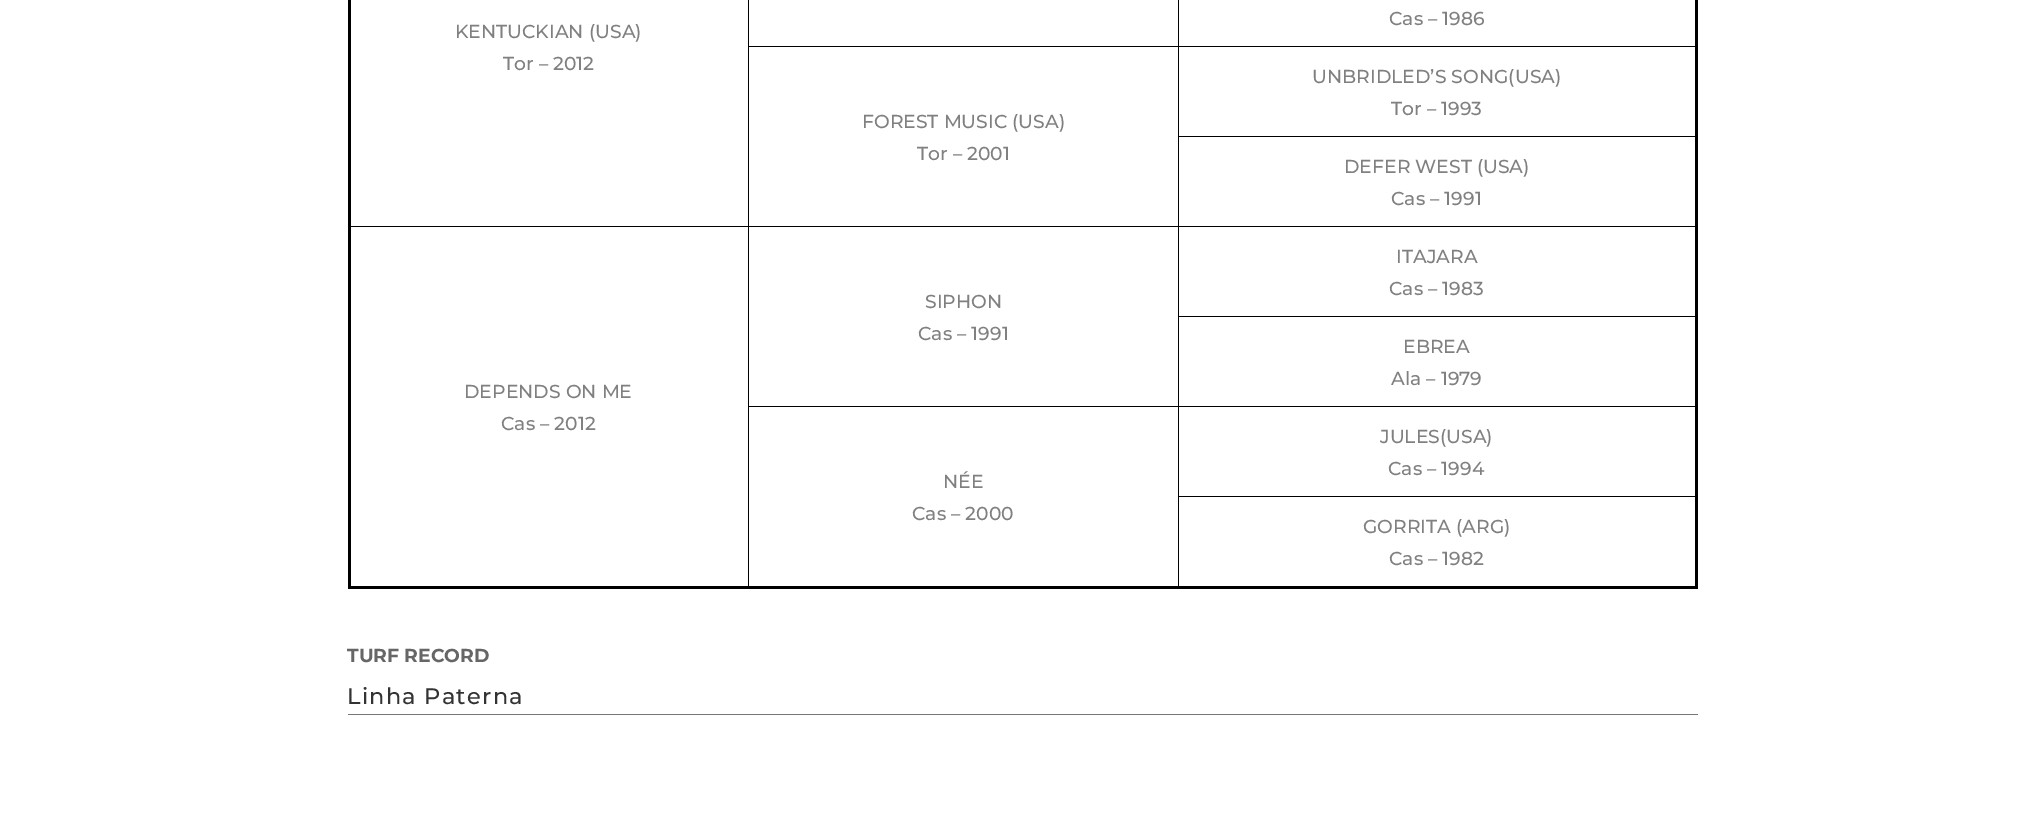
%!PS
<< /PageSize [2043 831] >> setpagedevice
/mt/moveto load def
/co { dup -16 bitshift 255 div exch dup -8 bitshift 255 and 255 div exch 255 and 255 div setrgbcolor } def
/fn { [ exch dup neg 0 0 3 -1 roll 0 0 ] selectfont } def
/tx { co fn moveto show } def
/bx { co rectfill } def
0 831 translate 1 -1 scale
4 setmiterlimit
0 0 2043 831 16#FFFFFF bx
1178 46 518 1 16#000000 bx
1178 136 518 1 16#000000 bx
1178 226 518 1 16#000000 bx
1178 316 518 1 16#000000 bx
1178 406 518 1 16#000000 bx
1178 496 518 1 16#000000 bx
1695 0 3 589 16#000000 bx
1178 496 1 93 16#000000 bx
1178 406 1 92 16#000000 bx
748 406 431 1 16#000000 bx
748 406 1 183 16#000000 bx
348 586 1350 3 16#000000 bx
1178 316 1 92 16#000000 bx
1178 226 1 92 16#000000 bx
748 226 431 1 16#000000 bx
748 226 1 182 16#000000 bx
348 226 401 1 16#000000 bx
348 0 3 589 16#000000 bx
1178 136 1 92 16#000000 bx
1178 46 1 92 16#000000 bx
748 46 431 1 16#000000 bx
1178 0 1 48 16#000000 bx
748 0 1 228 16#000000 bx
348 714 1350 1 16#777777 bx
(Cas – 1986) 1389 25 /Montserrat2-Thin 18.75 16#808080 tx
(KENTUCKIAN \(USA\)) 455 38 /Montserrat2-Thin 18.75 16#808080 tx
(Tor – 2012) 503 70 /Montserrat2-Thin 18.75 16#808080 tx
(UNBRIDLED’S SONG\(USA\)) 1312 83 /Montserrat2-Thin 18.75 16#808080 tx
(Tor – 1993) 1391 115 /Montserrat2-Thin 18.75 16#808080 tx
(FOREST MUSIC \(USA\)) 862 128 /Montserrat2-Thin 18.75 16#808080 tx
(Tor – 2001) 917 160 /Montserrat2-Thin 18.75 16#808080 tx
(DEFER WEST \(USA\)) 1344 173 /Montserrat2-Thin 18.75 16#808080 tx
(Cas – 1991) 1391 205 /Montserrat2-Thin 18.75 16#808080 tx
(ITAJARA) 1396 263 /Montserrat2-Thin 18.75 16#808080 tx
(Cas – 1983) 1389 295 /Montserrat2-Thin 18.75 16#808080 tx
(SIPHON) 925 308 /Montserrat2-Thin 18.75 16#808080 tx
(Cas – 1991) 918 340 /Montserrat2-Thin 18.75 16#808080 tx
(DEPENDS ON ME) 464 398 /Montserrat2-Thin 18.75 16#808080 tx
(Cas – 2012) 501 430 /Montserrat2-Thin 18.75 16#808080 tx
(EBREA) 1403 353 /Montserrat2-Thin 18.75 16#808080 tx
(Ala – 1979) 1391 385 /Montserrat2-Thin 18.75 16#808080 tx
(JULES\(USA\)) 1380 443 /Montserrat2-Thin 18.75 16#808080 tx
(Cas – 1994) 1388 475 /Montserrat2-Thin 18.75 16#808080 tx
(NÉE) 943 488 /Montserrat2-Thin 18.75 16#808080 tx
(Cas – 2000) 912 520 /Montserrat2-Thin 18.75 16#808080 tx
(GORRITA \(ARG\)) 1363 533 /Montserrat2-Thin 18.75 16#808080 tx
(Cas – 1982) 1389 565 /Montserrat2-Thin 18.75 16#808080 tx
(TURF RECORD) 347 662 /Montserrat-Thin 18.75 16#666666 tx
/Montserrat2-Thin 22.5 fn
16#333333 co
347 704 mt 1.25 0 (Linha Paterna) ashow
showpage
